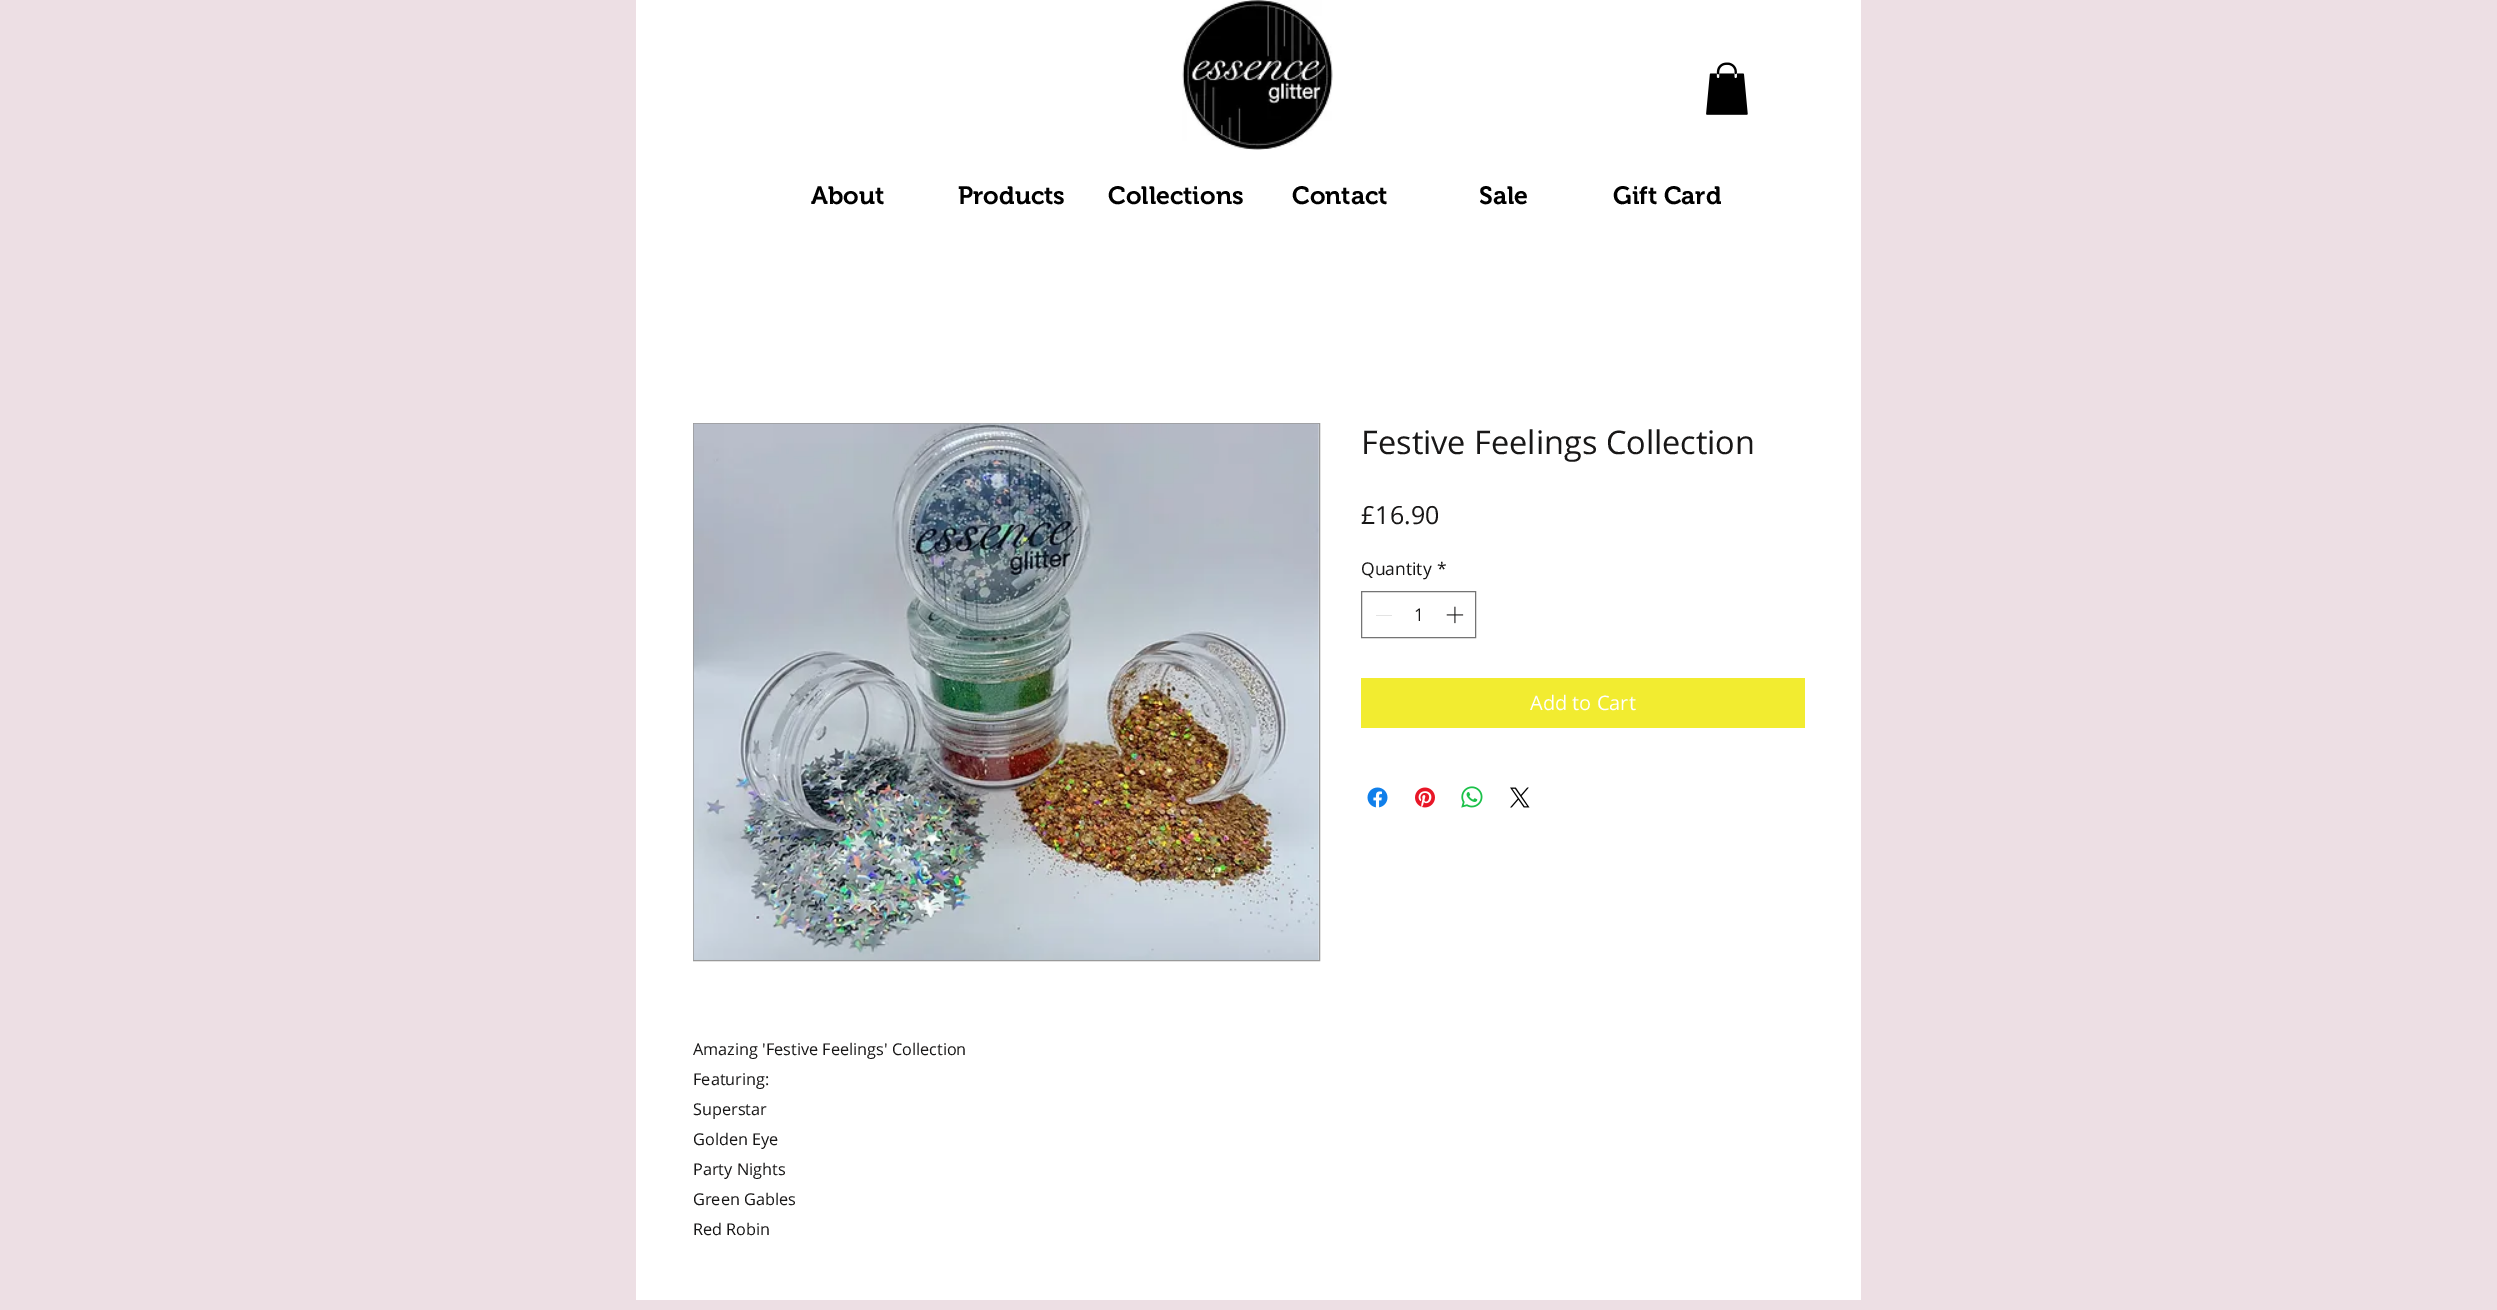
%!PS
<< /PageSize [2497 1310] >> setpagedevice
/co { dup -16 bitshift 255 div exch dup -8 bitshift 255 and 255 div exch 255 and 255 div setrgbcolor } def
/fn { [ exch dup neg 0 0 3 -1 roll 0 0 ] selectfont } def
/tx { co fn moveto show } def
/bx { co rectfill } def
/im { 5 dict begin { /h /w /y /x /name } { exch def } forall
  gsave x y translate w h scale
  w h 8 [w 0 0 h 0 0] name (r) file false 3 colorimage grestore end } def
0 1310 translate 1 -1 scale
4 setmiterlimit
0 0 2497 1310 16#EDDFE4 bx
636 0 1225 1300 16#FFFFFF bx
(media/1.raw) 1182 0 151 150 im
(media/2.raw) 1706 62 42 53 im
16#747474 co
1361.5 591.5 114 46 rectstroke
1376 615 16 1 16#E3E3E3 bx
(media/3.raw) 1446 606 18 18 im
1361 678 444 50 16#F2EC30 bx
(media/4.raw) 1367 787 21 21 im
(media/5.raw) 1415 787 20 21 im
(media/6.raw) 1461 786 22 22 im
(media/7.raw) 1510 787 20 21 im
16#999999 co
693.5 423.5 626 537 rectstroke
(media/8.raw) 693 423 626 537 im
(About) 811 204 /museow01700-SemiBold 25 16#000000 tx
(Products) 958 204 /museow01700-SemiBold 25 16#000000 tx
(Collections) 1108 204 /museow01700-SemiBold 25 16#000000 tx
(Contact) 1292 204 /museow01700-SemiBold 25 16#000000 tx
(Sale) 1479 204 /museow01700-SemiBold 25 16#000000 tx
(Gift Card) 1613 204 /museow01700-SemiBold 25 16#000000 tx
(Festive Feelings Collection) 1361 454 /OpenSans-Regular 32.5 16#181717 tx
(£16.90) 1361 524 /OpenSans-Regular 25 16#181717 tx
(Quantity) 1361 575 /OpenSans-Regular 17.5 16#181717 tx
(*) 1437 575 /OpenSans-Regular 17.5 16#181717 tx
(1) 1414 621 /OpenSans-Regular 17.5 16#181717 tx
(Add to Cart) 1530 710 /OpenSans-Regular 20 16#FFFFFF tx
(Amazing 'Festive Feelings' Collection) 693 1055 /OpenSans-Regular 16.25 16#181717 tx
(Featuring:) 693 1085 /OpenSans-Regular 16.25 16#181717 tx
(Superstar) 693 1115 /OpenSans-Regular 16.25 16#181717 tx
(Golden Eye) 693 1145 /OpenSans-Regular 16.25 16#181717 tx
(Party Nights) 693 1175 /OpenSans-Regular 16.25 16#181717 tx
(Green Gables) 693 1205 /OpenSans-Regular 16.25 16#181717 tx
(Red Robin) 693 1235 /OpenSans-Regular 16.25 16#181717 tx
showpage
